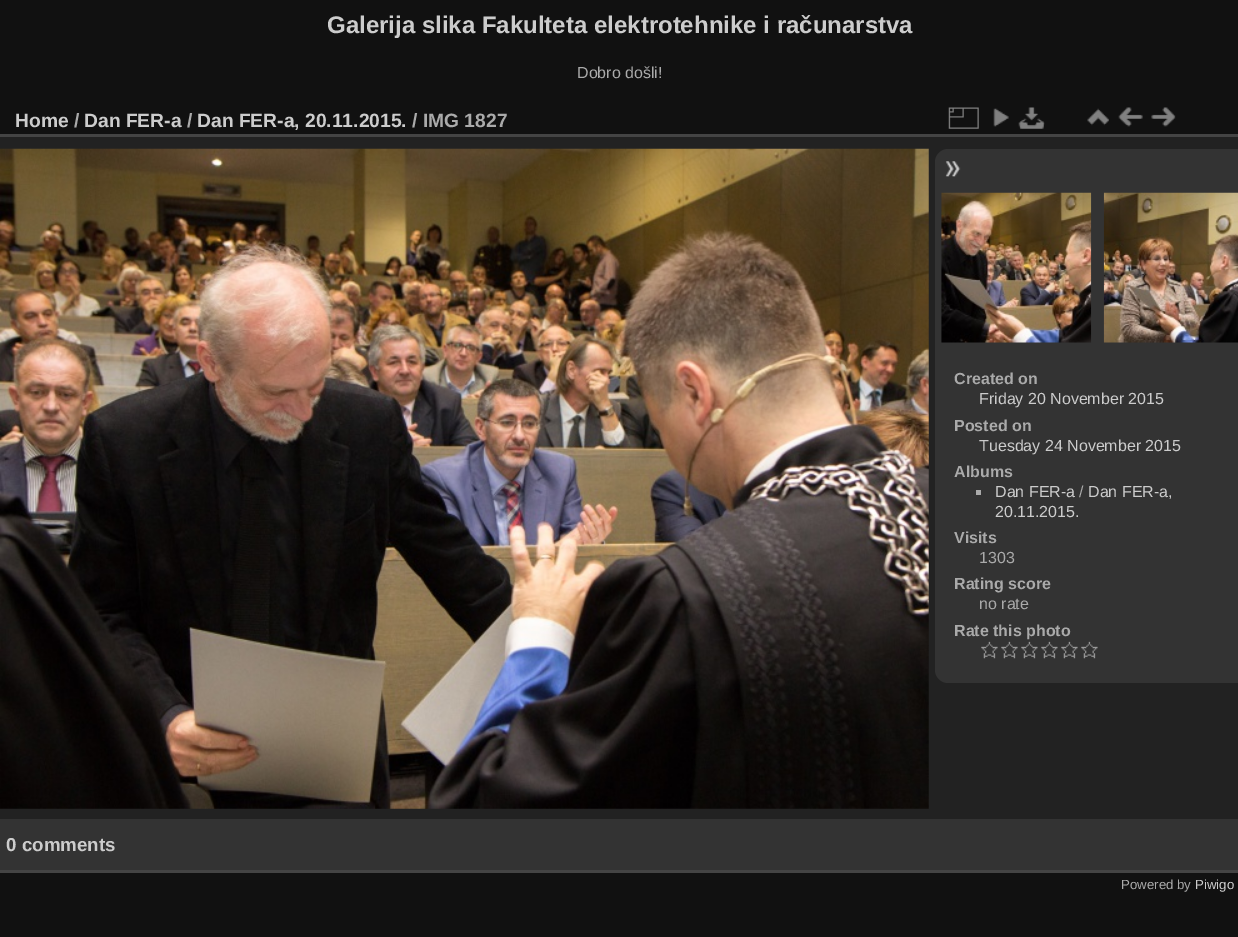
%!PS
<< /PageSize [1238 937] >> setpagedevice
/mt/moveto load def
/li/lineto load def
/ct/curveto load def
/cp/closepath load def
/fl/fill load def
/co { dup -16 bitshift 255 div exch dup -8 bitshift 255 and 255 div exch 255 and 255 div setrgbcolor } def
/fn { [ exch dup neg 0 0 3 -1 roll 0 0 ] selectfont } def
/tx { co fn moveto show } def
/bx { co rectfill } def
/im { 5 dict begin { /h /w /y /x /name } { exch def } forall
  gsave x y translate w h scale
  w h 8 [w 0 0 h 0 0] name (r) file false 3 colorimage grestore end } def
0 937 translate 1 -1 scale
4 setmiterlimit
0 0 1238 937 16#111111 bx
0 137 1238 682 16#222222 bx
0 870 1238 3 16#444444 bx
0 134 1238 3 16#444444 bx
(media/1.raw) 948 107 31 22 im
(media/2.raw) 993 108 16 19 im
(media/3.raw) 1018 107 27 22 im
(media/4.raw) 1087 108 22 18 im
(media/5.raw) 1118 107 25 20 im
(media/6.raw) 1151 107 25 20 im
(media/7.raw) 0 148 929 661 im
16#333333 co
948 149 mt 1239 149 li 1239 683 li 948 683 li 941 683 935 677 935 670 ct 935 162 li 935 155 941 149 948 149 ct cp fl
(media/8.raw) 945 161 16 16 im
(media/9.raw) 941 192 151 151 im
(media/10.raw) 1103 192 135 151 im
976 490 5 5 16#AAAAAA bx
(media/11.raw) 981 641 17 18 im
(media/11.raw) 1001 641 17 18 im
(media/12.raw) 1021 641 17 18 im
(media/13.raw) 1041 641 17 18 im
(media/11.raw) 1061 641 17 18 im
(media/11.raw) 1081 641 17 18 im
0 819 1238 51 16#333333 bx
(Galerija slika Fakulteta elektrotehnike i računarstva) 327 33 /LiberationSans-Bold 24 16#CCCCCC tx
(Dobro došli!) 577 78 /LiberationSans-Regular 16 16#AAAAAA tx
(Home) 15 127 /LiberationSans-Bold 19.25 16#CCCCCC tx
(/) 74 127 /LiberationSans-Bold 19.25 16#AAAAAA tx
(Dan FER-a) 84 127 /LiberationSans-Bold 19.25 16#CCCCCC tx
(/) 187 127 /LiberationSans-Bold 19.25 16#AAAAAA tx
(Dan FER-a, 20.11.2015.) 197 127 /LiberationSans-Bold 19.25 16#CCCCCC tx
(/ IMG 1827) 412 127 /LiberationSans-Bold 19.25 16#AAAAAA tx
(Created on) 954 384 /LiberationSans-Bold 16 16#AAAAAA tx
(Friday 20 November 2015) 979 404 /LiberationSans-Regular 16 16#CCCCCC tx
(Posted on) 954 431 /LiberationSans-Bold 16 16#AAAAAA tx
(Tuesday 24 November 2015) 979 451 /LiberationSans-Regular 16 16#CCCCCC tx
(Albums) 954 477 /LiberationSans-Bold 16 16#AAAAAA tx
(Dan FER-a) 995 497 /LiberationSans-Regular 16 16#CCCCCC tx
(/) 1079 497 /LiberationSans-Regular 16 16#AAAAAA tx
(Dan FER-a,) 1088 497 /LiberationSans-Regular 16 16#CCCCCC tx
(20.11.2015.) 995 517 /LiberationSans-Regular 16 16#CCCCCC tx
(Visits) 954 543 /LiberationSans-Bold 16 16#AAAAAA tx
(1303) 979 563 /LiberationSans-Regular 16 16#AAAAAA tx
(Rating score) 954 589 /LiberationSans-Bold 16 16#AAAAAA tx
(no rate) 979 609 /LiberationSans-Regular 16 16#AAAAAA tx
(Rate this photo) 954 636 /LiberationSans-Bold 16 16#AAAAAA tx
(0 comments) 6 851 /LiberationSans-Bold 18.75 16#CCCCCC tx
(Powered by) 1121 889 /LiberationSans-Regular 13.25 16#AAAAAA tx
(Piwigo) 1195 889 /LiberationSans-Regular 13.25 16#CCCCCC tx
showpage
